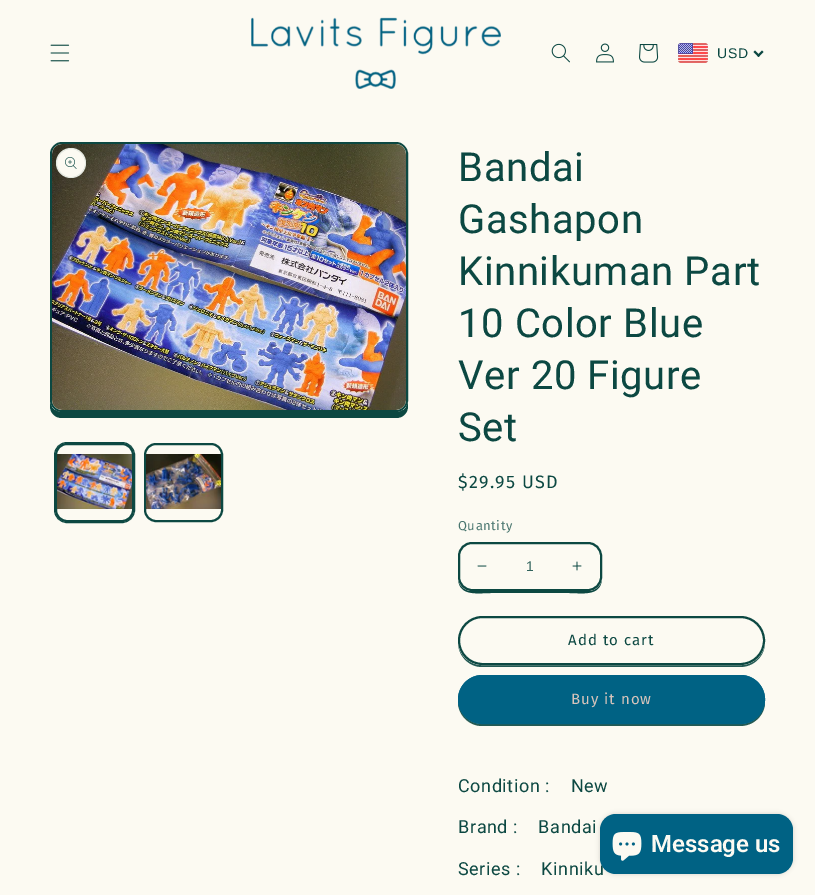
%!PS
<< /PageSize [815 895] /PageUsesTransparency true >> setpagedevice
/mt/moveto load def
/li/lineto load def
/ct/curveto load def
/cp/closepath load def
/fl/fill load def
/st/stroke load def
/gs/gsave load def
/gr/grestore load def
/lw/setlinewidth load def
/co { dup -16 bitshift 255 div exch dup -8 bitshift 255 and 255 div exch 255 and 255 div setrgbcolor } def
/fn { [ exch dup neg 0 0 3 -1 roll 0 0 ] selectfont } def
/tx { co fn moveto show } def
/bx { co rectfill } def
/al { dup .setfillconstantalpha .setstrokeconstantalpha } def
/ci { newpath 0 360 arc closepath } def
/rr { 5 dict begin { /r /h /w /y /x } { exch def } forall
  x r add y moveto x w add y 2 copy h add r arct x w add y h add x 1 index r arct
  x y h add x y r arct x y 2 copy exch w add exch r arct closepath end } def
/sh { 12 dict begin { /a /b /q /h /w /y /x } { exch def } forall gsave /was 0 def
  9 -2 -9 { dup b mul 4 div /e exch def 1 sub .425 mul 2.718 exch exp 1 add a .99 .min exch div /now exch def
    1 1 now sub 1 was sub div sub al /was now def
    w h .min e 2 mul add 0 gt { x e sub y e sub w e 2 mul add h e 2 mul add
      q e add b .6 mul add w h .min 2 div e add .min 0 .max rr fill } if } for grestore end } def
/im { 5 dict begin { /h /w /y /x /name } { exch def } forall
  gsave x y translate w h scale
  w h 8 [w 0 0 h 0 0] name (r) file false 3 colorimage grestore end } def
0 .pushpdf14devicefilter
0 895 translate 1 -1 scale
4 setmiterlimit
0 0 815 895 16#FCFAF2 bx
(media/1.raw) 50 44 20 18 im
(media/2.raw) 251 17 250 72 im
(media/3.raw) 551 43 19 20 im
(media/4.raw) 596 43 18 20 im
(media/5.raw) 639 44 20 19 im
(media/6.raw) 678 43 30 20 im
16#0C4842 co
762 50.5 mt 763.5 52 li 758.5 57 li 757 55.5 li cp fl
755 50.5 mt 760 55.5 li 758.5 57 li 753.5 52 li cp fl
50 400 mt 50 406 li 50 413 55 418 62 418 ct 396 418 li 403 418 408 413 408 406 ct 408 400 li 408 407 403 412 396 412 ct 62 412 li 55 412 50 407 50 400 ct cp fl
16#FCFAF2 co
51 143 356 268 11 rr gs fl gr
16#0C4842 co
2 lw
st
(media/7.raw) 52 144 354 266 im
16#FCFAF2 co
71 163 15 ci fl
0.1 al
16#0C4842 co
1 lw
71 163 14.5 ci st
1 al
(media/8.raw) 65 157 12 12 im
54.5 442.5 80 80 12.5 rr st
2 lw
56 444 77 77 11 rr st
(media/9.raw) 57 454 75 55 im
145 444 77 77 11 rr st
(media/10.raw) 146 454 75 55 im
458 577 mt 458 597 477 593 491 593 ct 569 593 li 583 593 602 597 602 577 ct 602 585 596 591 588 591 ct 472 591 li 464 591 458 585 458 577 ct cp fl
16#FCFAF2 co
458 542 144 49 14 rr fl
(media/11.raw) 477 565 10 2 im
(media/12.raw) 572 561 10 10 im
16#0C4842 co
459 543 142 47 13 rr st
16#245A54 co
458 642 mt 458 656 469 667 482 667 ct 740 667 li 754 667 765 656 765 642 ct 764 655 754 665 740 665 ct 482 665 li 469 665 459 655 458 642 ct cp fl
16#FCFAF2 co
458 616 307 49 24.5 rr fl
459 617 305 47 23.5 rr st
16#0C4842 co
459 617 305 47 23.5 rr st
16#245A54 co
458 700 mt 458 702 li 458 715 469 726 482 726 ct 740 726 li 754 726 765 715 765 702 ct 765 700 li 764 714 754 724 740 724 ct 482 724 li 469 724 459 714 458 700 ct cp fl
16#006284 co
458 675 307 49 24.5 rr fl
459 676 305 47 23.5 rr st
16#000000 co
600 814 193 60 16 2.5 .15 sh
/LiberationSans-Regular 14 fn
16#0C4842 co
717 58 mt .6 0 (USD) ashow
/Roboto-Regular 40 fn
458 181 mt .6 0 (Bandai) ashow
458 233 mt .6 0 (Gashapon) ashow
458 285 mt .6 0 (Kinnikuman Part) ashow
458 337 mt .6 0 (10 Color Blue) ashow
458 389 mt .6 0 (Ver 20 Figure) ashow
458 441 mt .6 0 (Set) ashow
/FiraSans-Regular 18 fn
458 488 mt 1.25 0 ($29.95 USD) ashow
/FiraSans-Regular 13 fn
16#48756E co
458 530 mt .5 0 (Quantity) ashow
(1) 526 571 /LiberationSans-Regular 14 16#30635C tx
/FiraSans-Regular 15 fn
16#0C4842 co
568 645 mt 1 0 (Add to cart) ashow
16#D7C4BB co
571 704 mt 1 0 (Buy it now) ashow
/Roboto-Regular 18 fn
16#0C4842 co
458 792 mt .6 0 (Condition :    New) ashow
458 833 mt .6 0 (Brand :    Bandai) ashow
458 875 mt .6 0 (Series :    Kinniku) ashow
16#006284 co
600 814 193 60 16 rr fl
(media/13.raw) 612 832 30 29 im
(Message us) 651 852 /Roboto-SemiBold 24 16#FCFAF2 tx
.poppdf14devicefilter showpage
